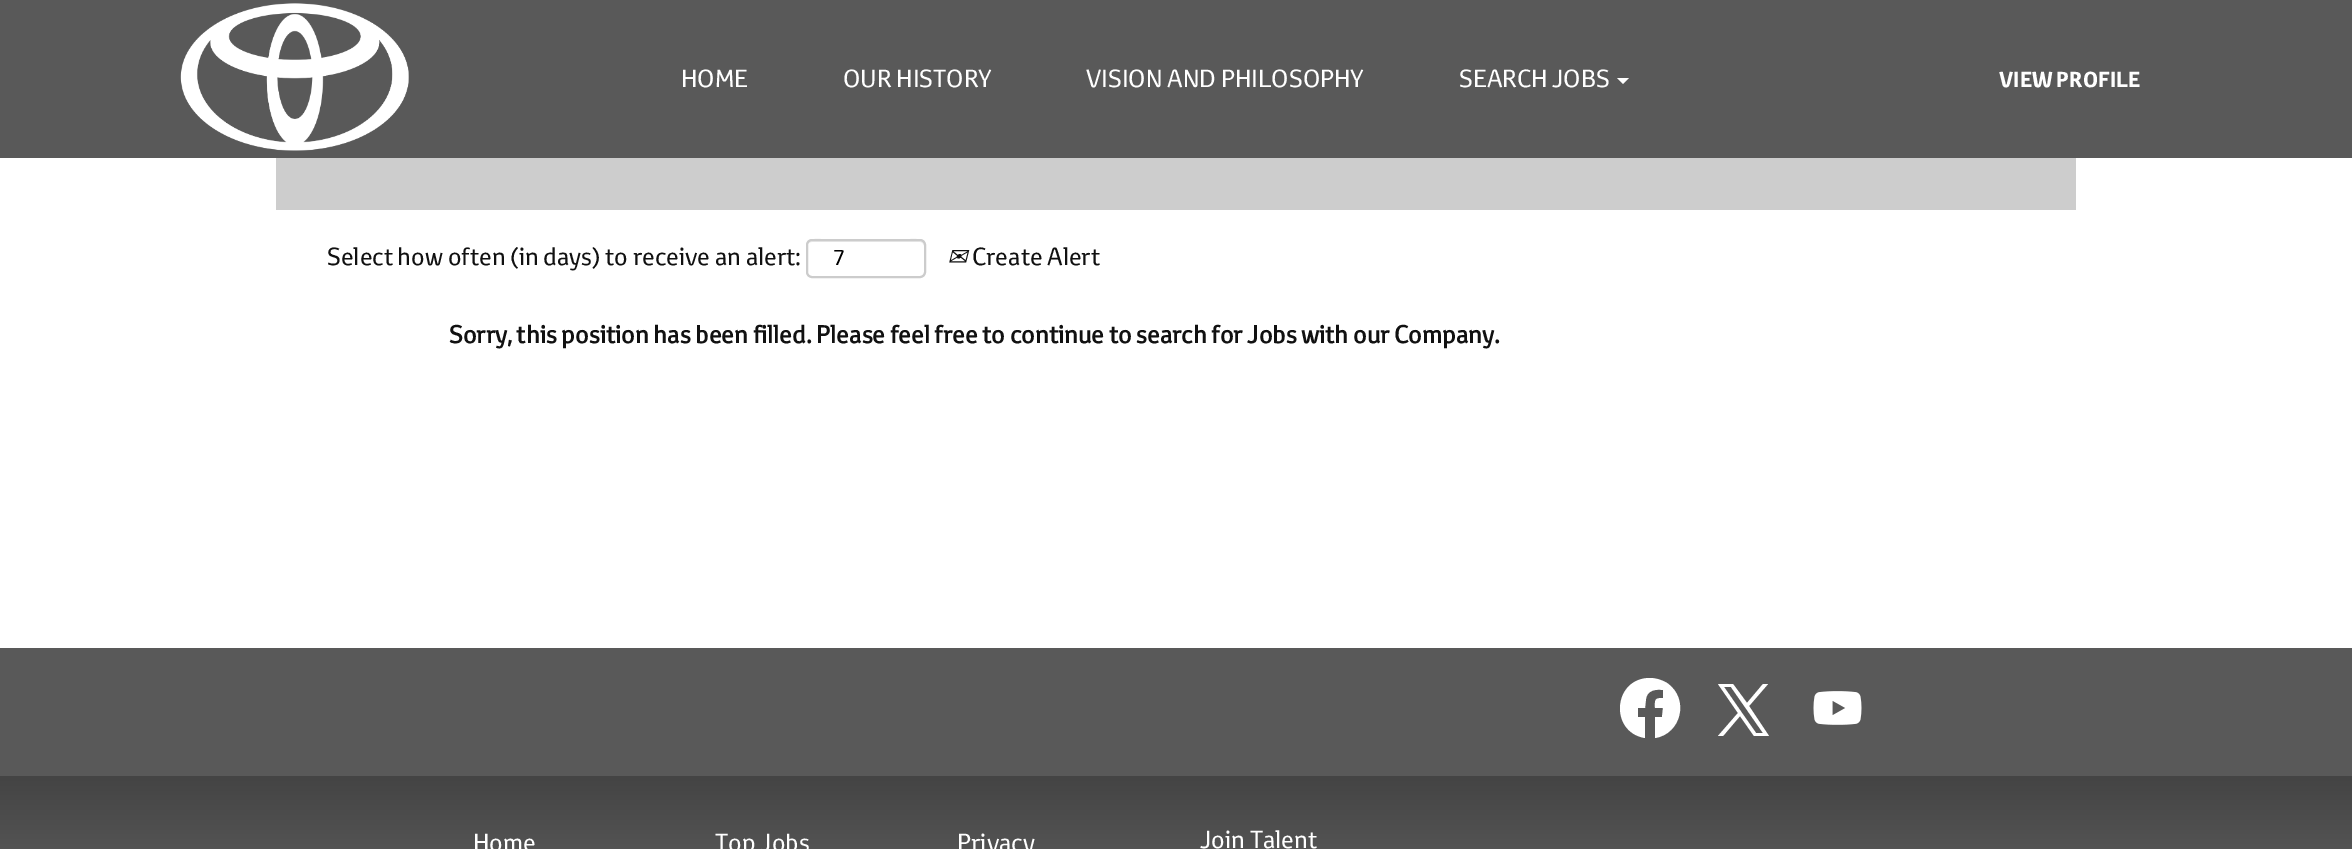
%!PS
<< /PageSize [2352 849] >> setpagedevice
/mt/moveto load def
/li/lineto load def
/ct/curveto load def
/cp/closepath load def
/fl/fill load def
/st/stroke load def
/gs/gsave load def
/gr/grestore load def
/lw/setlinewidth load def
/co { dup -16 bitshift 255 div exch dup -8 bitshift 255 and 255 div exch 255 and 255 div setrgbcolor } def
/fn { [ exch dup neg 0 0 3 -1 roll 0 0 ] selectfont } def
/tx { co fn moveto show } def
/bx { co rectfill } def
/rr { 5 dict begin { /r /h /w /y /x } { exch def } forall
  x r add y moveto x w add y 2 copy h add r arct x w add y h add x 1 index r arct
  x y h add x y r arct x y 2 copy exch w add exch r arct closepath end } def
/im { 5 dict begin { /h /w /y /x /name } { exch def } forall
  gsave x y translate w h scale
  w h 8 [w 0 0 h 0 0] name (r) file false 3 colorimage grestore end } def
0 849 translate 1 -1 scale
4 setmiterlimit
0 0 2352 849 16#FFFFFF bx
0 0 2352 158 16#595959 bx
(media/1.raw) 180 3 229 148 im
16#FFFFFF co
1617 78 mt 1629 78 li 1623 84 li cp fl
276 158 1800 52 16#CDCDCD bx
16#ECECEC co
812 242 mt 920 242 li 922 242 924 244 924 246 ct 924 235 906 240 901 240 ct 830 240 li 825 240 807 235 807 246 ct 807 244 809 242 812 242 ct cp fl
16#CCCCCC co
2 lw
807 240 118 37 5 rr st
0 648 2352 128 16#595959 bx
16#FFFFFF co
1650 678 mt 1613 678 1609 732 1645 738 ct 1645 717 li 1638 717 li 1638 708 li 1645 708 li 1646 699 li 1647 690 1656 689 1663 690 ct 1663 698 li 1654 698 1655 700 1655 708 ct 1663 708 li 1662 717 li 1655 717 li 1655 738 li 1681 734 1690 699 1667 683 ct 1662 680 1656 678 1650 678 ct cp fl
1749 706 mt 1768 684 li 1763 684 li 1747 703 li 1733 684 li 1718 684 li 1738 713 li 1718 736 li 1723 736 li 1740 716 li 1754 736 li 1769 736 li cp 1742 713 mt 1724 687 li 1731 687 li 1763 733 li 1756 733 li cp fl
(media/2.raw) 1813 691 49 34 im
gs 0 776 mt 2352 776 li 2352 849 li 0 849 li cp clip newpath
<< /ShadingType 2 /ColorSpace /DeviceRGB /Coords [1176 775 1176 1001] /Extend [true true] /Function << /FunctionType 2 /Domain [0 1] /C0 [.267 .267 .267] /C1 [.443 .443 .443] /N 1 >> >> shfill gr
(HOME) 681 87 /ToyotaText-Regular 24 16#FFFFFF tx
(OUR HISTORY) 843 87 /ToyotaText-Regular 24 16#FFFFFF tx
(VISION AND PHILOSOPHY) 1086 87 /ToyotaText-Regular 24 16#FFFFFF tx
(SEARCH JOBS) 1459 87 /ToyotaText-Regular 24 16#FFFFFF tx
(VIEW PROFILE) 1999 87 /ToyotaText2-Bold 21 16#FFFFFF tx
(Select how often \(in days\) to receive an alert:) 327 265 /ToyotaText-Regular 24 16#111111 tx
(7) 833 265 /ToyotaText-Regular 21 16#000000 tx
(✉) 947 265 /DejaVuSans-Italic 24 16#111111 tx
(Create Alert) 972 265 /ToyotaText-Regular 24 16#111111 tx
(Sorry, this position has been filled. Please feel free to continue to search for Jobs with our Company.) 449 343 /ToyotaText-Bold 24 16#111111 tx
(Home) 473 851 /ToyotaText-Regular 24 16#FFFFFF tx
(Top Jobs) 715 851 /ToyotaText-Regular 24 16#FFFFFF tx
(Privacy) 957 851 /ToyotaText-Regular 24 16#FFFFFF tx
(Join Talent) 1200 848 /ToyotaText-Regular 24 16#FFFFFF tx
showpage
